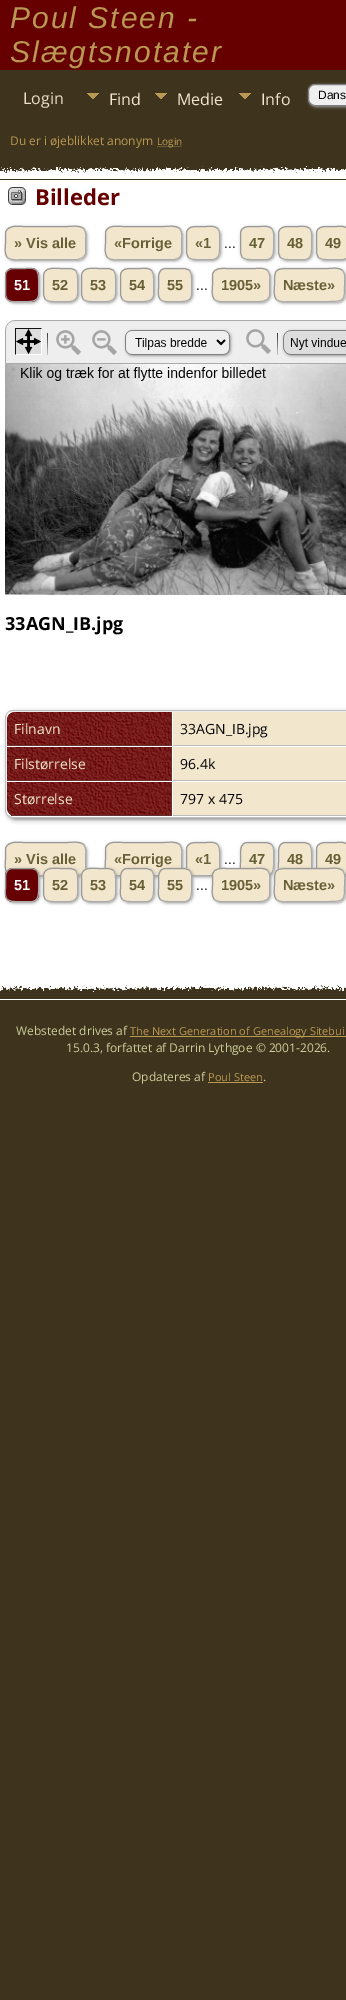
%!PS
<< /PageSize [346 2000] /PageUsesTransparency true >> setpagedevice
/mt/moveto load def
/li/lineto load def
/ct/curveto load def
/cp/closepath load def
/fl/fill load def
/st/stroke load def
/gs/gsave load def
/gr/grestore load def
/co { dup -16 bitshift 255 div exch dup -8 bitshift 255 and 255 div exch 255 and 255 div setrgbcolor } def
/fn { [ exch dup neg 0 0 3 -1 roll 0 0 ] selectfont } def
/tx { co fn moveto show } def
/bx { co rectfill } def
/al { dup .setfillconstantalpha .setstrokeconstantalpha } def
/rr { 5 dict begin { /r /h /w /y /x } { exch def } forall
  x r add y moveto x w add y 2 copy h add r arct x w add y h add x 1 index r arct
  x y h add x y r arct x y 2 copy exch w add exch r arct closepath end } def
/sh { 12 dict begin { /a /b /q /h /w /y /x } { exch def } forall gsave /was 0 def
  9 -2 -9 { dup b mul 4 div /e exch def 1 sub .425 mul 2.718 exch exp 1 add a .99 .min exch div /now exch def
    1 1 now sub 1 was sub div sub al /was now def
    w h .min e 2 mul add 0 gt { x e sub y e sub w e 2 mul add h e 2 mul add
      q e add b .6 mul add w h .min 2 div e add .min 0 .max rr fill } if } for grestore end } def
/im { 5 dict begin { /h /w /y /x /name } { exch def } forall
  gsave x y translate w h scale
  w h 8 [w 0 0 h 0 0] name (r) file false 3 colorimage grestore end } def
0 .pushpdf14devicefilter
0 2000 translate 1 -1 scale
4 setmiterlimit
0 0 346 2000 16#3E331D bx
0 0 346 70 16#660000 bx
(media/1.raw) 87 93 12 6 im
(media/1.raw) 155 93 12 6 im
(media/1.raw) 239 93 12 6 im
16#999999 co
309 85 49 22 7 1.5 1 sh
16#EFEFEF co
308.5 84.5 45 21 6.5 rr gs fl gr
16#808080 co
st
157 146 25 1 16#676037 bx
(media/2.raw) 0 166 346 13 im
0 180 346 799 16#FFFFFF bx
(media/3.raw) 8 187 18 18 im
16#999999 co
6 227 81 34 8 1.5 1 sh
16#F2E6CC co
5 226 81 34 8 rr fl
16#AAAAAA co
83.5 228.5 mt 87 232.5 85.5 238.5 85.5 243 ct 85.5 253.5 li 83.5 261.5 73 259.5 67 259.5 ct 24 259.5 li 20 259.5 11.5 261 7.5 257.5 ct st
16#999999 co
7.5 257.5 mt 4 253.5 5.5 247.5 5.5 243 ct 5.5 232.5 li 7.5 224.5 18 226.5 24 226.5 ct 67 226.5 li 71 226.5 79.5 225 83.5 228.5 ct st
106 227 77 34 8 1.5 1 sh
16#F2E6CC co
105 226 77 34 8 rr fl
16#AAAAAA co
179.5 228.5 mt 183 232.5 181.5 238.5 181.5 243 ct 181.5 253.5 li 180 261.5 169.5 259.5 164 259.5 ct 123 259.5 li 119 259.5 111.5 261 107.5 257.5 ct st
16#999999 co
107.5 257.5 mt 104 253.5 105.5 247.5 105.5 243 ct 105.5 232.5 li 107 224.5 117.5 226.5 123 226.5 ct 164 226.5 li 168 226.5 175.5 225 179.5 228.5 ct st
187 227 34 34 8 1.5 1 sh
16#F2E6CC co
186 226 34 34 8 rr fl
16#AAAAAA co
217.5 228.5 mt 220.5 231.5 219.5 236 219.5 240 ct 219.5 249 li 219.5 253.5 219 258.5 213.5 259.5 ct 197 259.5 li 194 259.5 191 259.5 188.5 257.5 ct st
16#999999 co
188.5 257.5 mt 186.5 255 186.5 252 186.5 249 ct 186.5 232.5 li 187.5 227 192.5 226.5 197 226.5 ct 206 226.5 li 210 226.5 214.5 225.5 217.5 228.5 ct st
241 227 34 34 8 1.5 1 sh
16#F2E6CC co
240 226 34 34 8 rr fl
16#AAAAAA co
271.5 228.5 mt 274.5 231.5 273.5 236 273.5 240 ct 273.5 249 li 273.5 253.5 273 258.5 267.5 259.5 ct 251 259.5 li 248 259.5 245 259.5 242.5 257.5 ct st
16#999999 co
242.5 257.5 mt 240.5 255 240.5 252 240.5 249 ct 240.5 232.5 li 241.5 227 246.5 226.5 251 226.5 ct 260 226.5 li 264 226.5 268.5 225.5 271.5 228.5 ct st
279 227 34 34 8 1.5 1 sh
16#F2E6CC co
278 226 34 34 8 rr fl
16#AAAAAA co
309.5 228.5 mt 312.5 231.5 311.5 236 311.5 240 ct 311.5 249 li 311.5 253.5 311 258.5 305.5 259.5 ct 289 259.5 li 286 259.5 283 259.5 280.5 257.5 ct st
16#999999 co
280.5 257.5 mt 278.5 255 278.5 252 278.5 249 ct 278.5 232.5 li 279.5 227 284.5 226.5 289 226.5 ct 298 226.5 li 302 226.5 306.5 225.5 309.5 228.5 ct st
317 227 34 34 8 1.5 1 sh
16#F2E6CC co
316 226 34 34 8 rr fl
16#AAAAAA co
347.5 228.5 mt 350.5 231.5 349.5 236 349.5 240 ct 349.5 249 li 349.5 253.5 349 258.5 343.5 259.5 ct 327 259.5 li 324 259.5 321 259.5 318.5 257.5 ct st
16#999999 co
318.5 257.5 mt 316.5 255 316.5 252 316.5 249 ct 316.5 232.5 li 317.5 227 322.5 226.5 327 226.5 ct 336 226.5 li 340 226.5 344.5 225.5 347.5 228.5 ct st
6 269 34 34 8 1.5 1 sh
16#660002 co
5 268 34 34 8 rr fl
16#AAAAAA co
36.5 270.5 mt 38.5 273 38.5 276 38.5 279 ct 38.5 295.5 li 37.5 301 32.5 301.5 28 301.5 ct 19 301.5 li 15 301.5 10.5 302.5 7.5 299.5 ct st
16#999999 co
7.5 299.5 mt 5.5 297 5.5 294 5.5 291 ct 5.5 274.5 li 6.5 269 11.5 268.5 16 268.5 ct 25 268.5 li 29 268.5 33.5 267.5 36.5 270.5 ct st
44 269 35 34 8 1.5 1 sh
16#F2E6CC co
43 268 35 34 8 rr fl
16#AAAAAA co
75.5 270.5 mt 77.5 273 77.5 276 77.5 279 ct 77.5 294.5 li 76.5 303.5 66.5 301.5 60.5 301.5 ct 54 301.5 li 51 301.5 48 301.5 45.5 299.5 ct st
16#999999 co
45.5 299.5 mt 43.5 297 43.5 294 43.5 291 ct 43.5 275.5 li 44.5 266.5 54.5 268.5 60.5 268.5 ct 67 268.5 li 70 268.5 73 268.5 75.5 270.5 ct st
82 269 35 34 8 1.5 1 sh
16#F2E6CC co
81 268 35 34 8 rr fl
16#AAAAAA co
113.5 270.5 mt 115.5 273 115.5 276 115.5 279 ct 115.5 294.5 li 114.5 303.5 104.5 301.5 98.5 301.5 ct 92 301.5 li 89 301.5 86 301.5 83.5 299.5 ct st
16#999999 co
83.5 299.5 mt 81.5 297 81.5 294 81.5 291 ct 81.5 275.5 li 82.5 266.5 92.5 268.5 98.5 268.5 ct 105 268.5 li 108 268.5 111 268.5 113.5 270.5 ct st
121 269 34 34 8 1.5 1 sh
16#F2E6CC co
120 268 34 34 8 rr fl
16#AAAAAA co
151.5 270.5 mt 153.5 273 153.5 276 153.5 279 ct 153.5 295.5 li 152.5 301 147.5 301.5 143 301.5 ct 134 301.5 li 130 301.5 125.5 302.5 122.5 299.5 ct st
16#999999 co
122.5 299.5 mt 120.5 297 120.5 294 120.5 291 ct 120.5 274.5 li 121.5 269 126.5 268.5 131 268.5 ct 140 268.5 li 144 268.5 148.5 267.5 151.5 270.5 ct st
159 269 34 34 8 1.5 1 sh
16#F2E6CC co
158 268 34 34 8 rr fl
16#AAAAAA co
189.5 270.5 mt 191.5 273 191.5 276 191.5 279 ct 191.5 295.5 li 190.5 301 185.5 301.5 181 301.5 ct 172 301.5 li 168 301.5 163.5 302.5 160.5 299.5 ct st
16#999999 co
160.5 299.5 mt 157.5 296.5 158.5 292 158.5 288 ct 158.5 279 li 158.5 274.5 159 269.5 164.5 268.5 ct 181 268.5 li 184 268.5 187 268.5 189.5 270.5 ct st
213 269 58 34 8 1.5 1 sh
16#F2E6CC co
212 268 58 34 8 rr fl
16#AAAAAA co
267.5 270.5 mt 271 274.5 269.5 280.5 269.5 285 ct 269.5 295.5 li 268 302.5 260.5 301.5 255 301.5 ct 227 301.5 li 223 301.5 218 302.5 214.5 299.5 ct st
16#999999 co
214.5 299.5 mt 211 295.5 212.5 289.5 212.5 285 ct 212.5 274.5 li 214 267.5 221.5 268.5 227 268.5 ct 255 268.5 li 259 268.5 264 267.5 267.5 270.5 ct st
275 269 71 34 8 1.5 1 sh
16#F2E6CC co
274 268 71 34 8 rr fl
16#AAAAAA co
342.5 270.5 mt 346 274.5 344.5 280.5 344.5 285 ct 344.5 301 344.5 301.5 328 301.5 ct 291 301.5 li 287 301.5 280.5 303 276.5 299.5 ct st
16#999999 co
276.5 299.5 mt 273 295.5 274.5 289.5 274.5 285 ct 274.5 269 274.5 268.5 291 268.5 ct 328 268.5 li 332 268.5 338.5 267 342.5 270.5 ct st
(media/4.raw) 5 320 341 275 im
16#666666 co
8 713 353 106 7 2.5 1 sh
16#FFFFFF co
5.5 710.5 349 107 7.5 rr gs fl gr
16#C0C0C0 co
st
(media/5.raw) 7 712 164 33 im
171 712 1 34 16#663333 bx
7 745 165 1 16#663333 bx
173 712 173 33 16#F2E6CC bx
173 745 173 1 16#BBBBBB bx
(media/6.raw) 7 747 164 33 im
171 747 1 34 16#663333 bx
7 780 165 1 16#663333 bx
173 747 173 33 16#F2E6CC bx
173 780 173 1 16#BBBBBB bx
16#660002 co
7 782 mt 172 782 li 172 816 li 15 816 li 10.5 816 7 812.5 7 808 ct cp fl
(media/7.raw) 7 782 164 33 im
171 782 1 34 16#663333 bx
11 815 161 1 16#663333 bx
173 782 173 33 16#F2E6CC bx
16#BBBBBB co
173 782 mt 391 782 li 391 808 li 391 812 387 816 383 816 ct 173 816 li cp 173 782 mt 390 782 li 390 808 li 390 812 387 815 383 815 ct 173 815 li cp eofill
16#999999 co
6 843 81 34 8 1.5 1 sh
16#F2E6CC co
5 842 81 34 8 rr fl
16#AAAAAA co
83.5 844.5 mt 87 848.5 85.5 854.5 85.5 859 ct 85.5 869.5 li 83.5 877.5 73 875.5 67 875.5 ct 24 875.5 li 20 875.5 11.5 877 7.5 873.5 ct st
16#999999 co
7.5 873.5 mt 4 869.5 5.5 863.5 5.5 859 ct 5.5 848.5 li 7.5 840.5 18 842.5 24 842.5 ct 67 842.5 li 71 842.5 79.5 841 83.5 844.5 ct st
106 843 77 34 8 1.5 1 sh
16#F2E6CC co
105 842 77 34 8 rr fl
16#AAAAAA co
179.5 844.5 mt 183 848.5 181.5 854.5 181.5 859 ct 181.5 869.5 li 180 877.5 169.5 875.5 164 875.5 ct 123 875.5 li 119 875.5 111.5 877 107.5 873.5 ct st
16#999999 co
107.5 873.5 mt 104 869.5 105.5 863.5 105.5 859 ct 105.5 848.5 li 107 840.5 117.5 842.5 123 842.5 ct 164 842.5 li 168 842.5 175.5 841 179.5 844.5 ct st
187 843 34 34 8 1.5 1 sh
16#F2E6CC co
186 842 34 34 8 rr fl
16#AAAAAA co
217.5 844.5 mt 219.5 847 219.5 850 219.5 853 ct 219.5 869.5 li 218.5 875 213.5 875.5 209 875.5 ct 200 875.5 li 196 875.5 191.5 876.5 188.5 873.5 ct st
16#999999 co
188.5 873.5 mt 186.5 871 186.5 868 186.5 865 ct 186.5 848.5 li 187.5 843 192.5 842.5 197 842.5 ct 206 842.5 li 210 842.5 214.5 841.5 217.5 844.5 ct st
241 843 34 34 8 1.5 1 sh
16#F2E6CC co
240 842 34 34 8 rr fl
16#AAAAAA co
271.5 844.5 mt 274.5 847.5 273.5 852 273.5 856 ct 273.5 865 li 273.5 869.5 273 874.5 267.5 875.5 ct 251 875.5 li 248 875.5 245 875.5 242.5 873.5 ct st
16#999999 co
242.5 873.5 mt 239.5 870.5 240.5 866 240.5 862 ct 240.5 853 li 240.5 848.5 241 843.5 246.5 842.5 ct 263 842.5 li 266 842.5 269 842.5 271.5 844.5 ct st
279 843 34 34 8 1.5 1 sh
16#F2E6CC co
278 842 34 34 8 rr fl
16#AAAAAA co
309.5 844.5 mt 311.5 847 311.5 850 311.5 853 ct 311.5 869.5 li 310.5 875 305.5 875.5 301 875.5 ct 292 875.5 li 288 875.5 283.5 876.5 280.5 873.5 ct st
16#999999 co
280.5 873.5 mt 277.5 870.5 278.5 866 278.5 862 ct 278.5 853 li 278.5 848.5 279 843.5 284.5 842.5 ct 301 842.5 li 304 842.5 307 842.5 309.5 844.5 ct st
317 843 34 34 8 1.5 1 sh
16#F2E6CC co
316 842 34 34 8 rr fl
16#AAAAAA co
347.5 844.5 mt 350.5 847.5 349.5 852 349.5 856 ct 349.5 865 li 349.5 869.5 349 874.5 343.5 875.5 ct 327 875.5 li 324 875.5 321 875.5 318.5 873.5 ct st
16#999999 co
318.5 873.5 mt 316.5 871 316.5 868 316.5 865 ct 316.5 848.5 li 317.5 843 322.5 842.5 327 842.5 ct 336 842.5 li 340 842.5 344.5 841.5 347.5 844.5 ct st
6 869 34 34 8 1.5 1 sh
16#660002 co
5 868 34 34 8 rr fl
16#AAAAAA co
36.5 870.5 mt 39.5 873.5 38.5 878 38.5 882 ct 38.5 891 li 38.5 895.5 38 900.5 32.5 901.5 ct 16 901.5 li 13 901.5 10 901.5 7.5 899.5 ct st
16#999999 co
7.5 899.5 mt 4.5 896.5 5.5 892 5.5 888 ct 5.5 879 li 5.5 874.5 6 869.5 11.5 868.5 ct 28 868.5 li 31 868.5 34 868.5 36.5 870.5 ct st
44 869 35 34 8 1.5 1 sh
16#F2E6CC co
43 868 35 34 8 rr fl
16#AAAAAA co
75.5 870.5 mt 77.5 873 77.5 876 77.5 879 ct 77.5 894.5 li 76.5 903.5 66.5 901.5 60.5 901.5 ct 54 901.5 li 51 901.5 48 901.5 45.5 899.5 ct st
16#999999 co
45.5 899.5 mt 43.5 897 43.5 894 43.5 891 ct 43.5 875.5 li 44.5 866.5 54.5 868.5 60.5 868.5 ct 67 868.5 li 70 868.5 73 868.5 75.5 870.5 ct st
82 869 35 34 8 1.5 1 sh
16#F2E6CC co
81 868 35 34 8 rr fl
16#AAAAAA co
113.5 870.5 mt 115.5 873 115.5 876 115.5 879 ct 115.5 894.5 li 114.5 903.5 104.5 901.5 98.5 901.5 ct 92 901.5 li 89 901.5 86 901.5 83.5 899.5 ct st
16#999999 co
83.5 899.5 mt 81.5 897 81.5 894 81.5 891 ct 81.5 875.5 li 82.5 866.5 92.5 868.5 98.5 868.5 ct 105 868.5 li 108 868.5 111 868.5 113.5 870.5 ct st
121 869 34 34 8 1.5 1 sh
16#F2E6CC co
120 868 34 34 8 rr fl
16#AAAAAA co
151.5 870.5 mt 154.5 873.5 153.5 878 153.5 882 ct 153.5 891 li 153.5 895.5 153 900.5 147.5 901.5 ct 131 901.5 li 128 901.5 125 901.5 122.5 899.5 ct st
16#999999 co
122.5 899.5 mt 119.5 896.5 120.5 892 120.5 888 ct 120.5 879 li 120.5 874.5 121 869.5 126.5 868.5 ct 143 868.5 li 146 868.5 149 868.5 151.5 870.5 ct st
159 869 34 34 8 1.5 1 sh
16#F2E6CC co
158 868 34 34 8 rr fl
16#AAAAAA co
189.5 870.5 mt 192.5 873.5 191.5 878 191.5 882 ct 191.5 891 li 191.5 895.5 191 900.5 185.5 901.5 ct 169 901.5 li 166 901.5 163 901.5 160.5 899.5 ct st
16#999999 co
160.5 899.5 mt 157.5 896.5 158.5 892 158.5 888 ct 158.5 879 li 158.5 874.5 159 869.5 164.5 868.5 ct 181 868.5 li 184 868.5 187 868.5 189.5 870.5 ct st
213 869 58 34 8 1.5 1 sh
16#F2E6CC co
212 868 58 34 8 rr fl
16#AAAAAA co
267.5 870.5 mt 271 874.5 269.5 880.5 269.5 885 ct 269.5 895.5 li 268 902.5 260.5 901.5 255 901.5 ct 227 901.5 li 223 901.5 218 902.5 214.5 899.5 ct st
16#999999 co
214.5 899.5 mt 211 895.5 212.5 889.5 212.5 885 ct 212.5 874.5 li 214 867.5 221.5 868.5 227 868.5 ct 255 868.5 li 259 868.5 264 867.5 267.5 870.5 ct st
275 869 71 34 8 1.5 1 sh
16#F2E6CC co
274 868 71 34 8 rr fl
16#AAAAAA co
342.5 870.5 mt 346 874.5 344.5 880.5 344.5 885 ct 344.5 901 344.5 901.5 328 901.5 ct 291 901.5 li 287 901.5 280.5 903 276.5 899.5 ct st
16#999999 co
276.5 899.5 mt 273 895.5 274.5 889.5 274.5 885 ct 274.5 869 274.5 868.5 291 868.5 ct 328 868.5 li 332 868.5 338.5 867 342.5 870.5 ct st
(media/8.raw) 0 979 346 21 im
130 1036 216 1 16#B99852 bx
208 1082 55 1 16#B99852 bx
/LiberationSans-Italic 30 fn
10 28 mt 2 0 (Poul Steen -) ashow
10 62 mt 2 0 (Slægtsnotater) ashow
(Login) 23 104 /OpenSans-Regular 16 16#EBDEC5 tx
(Find) 109 105 /OpenSans-Regular 16 16#F2E6CC tx
(Medie) 177 105 /OpenSans-Regular 16 16#F2E6CC tx
(Info) 261 105 /OpenSans-Regular 16 16#F2E6CC tx
(Dans) 318 99 /LiberationSans-Regular 12 16#000000 tx
(Du er i øjeblikket anonym) 10 145 /OpenSans-Regular 12 16#B99852 tx
(Login) 157 145 /OpenSans-Regular 10 16#B99852 tx
(Billeder) 35 205 /OpenSans-Bold 22 16#660000 tx
(» Vis alle) 14 248 /LiberationSans-Bold 14.5 16#676037 tx
(«Forrige) 114 248 /LiberationSans-Bold 14.5 16#676037 tx
(«1) 195 248 /LiberationSans-Bold 14.5 16#676037 tx
(...) 224 248 /LiberationSans-Regular 14 16#000000 tx
(47) 249 248 /LiberationSans-Bold 14.5 16#676037 tx
(48) 287 248 /LiberationSans-Bold 14.5 16#676037 tx
(49) 325 248 /LiberationSans-Bold 14.5 16#676037 tx
(51) 14 290 /LiberationSans-Bold 14.5 16#FFFFFF tx
(52) 52 290 /LiberationSans-Bold 14.5 16#676037 tx
(53) 90 290 /LiberationSans-Bold 14.5 16#676037 tx
(54) 129 290 /LiberationSans-Bold 14.5 16#676037 tx
(55) 167 290 /LiberationSans-Bold 14.5 16#676037 tx
(...) 196 290 /LiberationSans-Regular 14 16#000000 tx
(1905») 221 290 /LiberationSans-Bold 14.5 16#676037 tx
(Næste») 283 290 /LiberationSans-Bold 14.5 16#676037 tx
(33AGN_IB.jpg) 5 630 /OpenSans-Bold 18 16#000000 tx
(Filnavn) 14 734 /OpenSans-Regular 14 16#F2E6CC tx
(33AGN_IB.jpg) 180 734 /OpenSans-Regular 14 16#000000 tx
(Filstørrelse) 14 769 /OpenSans-Regular 14 16#F2E6CC tx
(96.4k) 180 769 /OpenSans-Regular 14 16#000000 tx
(Størrelse) 14 804 /OpenSans-Regular 14 16#F2E6CC tx
(797 x 475) 180 804 /OpenSans-Regular 14 16#000000 tx
(» Vis alle) 14 864 /LiberationSans-Bold 14.5 16#676037 tx
(«Forrige) 114 864 /LiberationSans-Bold 14.5 16#676037 tx
(«1) 195 864 /LiberationSans-Bold 14.5 16#676037 tx
(...) 224 864 /LiberationSans-Regular 14 16#000000 tx
(47) 249 864 /LiberationSans-Bold 14.5 16#676037 tx
(48) 287 864 /LiberationSans-Bold 14.5 16#676037 tx
(49) 325 864 /LiberationSans-Bold 14.5 16#676037 tx
(51) 14 890 /LiberationSans-Bold 14.5 16#FFFFFF tx
(52) 52 890 /LiberationSans-Bold 14.5 16#676037 tx
(53) 90 890 /LiberationSans-Bold 14.5 16#676037 tx
(54) 129 890 /LiberationSans-Bold 14.5 16#676037 tx
(55) 167 890 /LiberationSans-Bold 14.5 16#676037 tx
(...) 196 890 /LiberationSans-Regular 14 16#000000 tx
(1905») 221 890 /LiberationSans-Bold 14.5 16#676037 tx
(Næste») 283 890 /LiberationSans-Bold 14.5 16#676037 tx
(Webstedet drives af) 16 1035 /OpenSans-Regular 12 16#CCCC99 tx
(The Next Generation of Genealogy Sitebuil) 130 1035 /OpenSans-Regular 11 16#B99852 tx
(15.0.3, forfattet af Darrin Lythgoe © 2001-2026.) 66 1052 /OpenSans-Regular 12 16#CCCC99 tx
(Opdateres af) 132 1081 /OpenSans-Regular 12 16#CCCC99 tx
(Poul Steen) 208 1081 /OpenSans-Regular 11 16#B99852 tx
(.) 263 1081 /OpenSans-Regular 12 16#CCCC99 tx
.poppdf14devicefilter showpage
